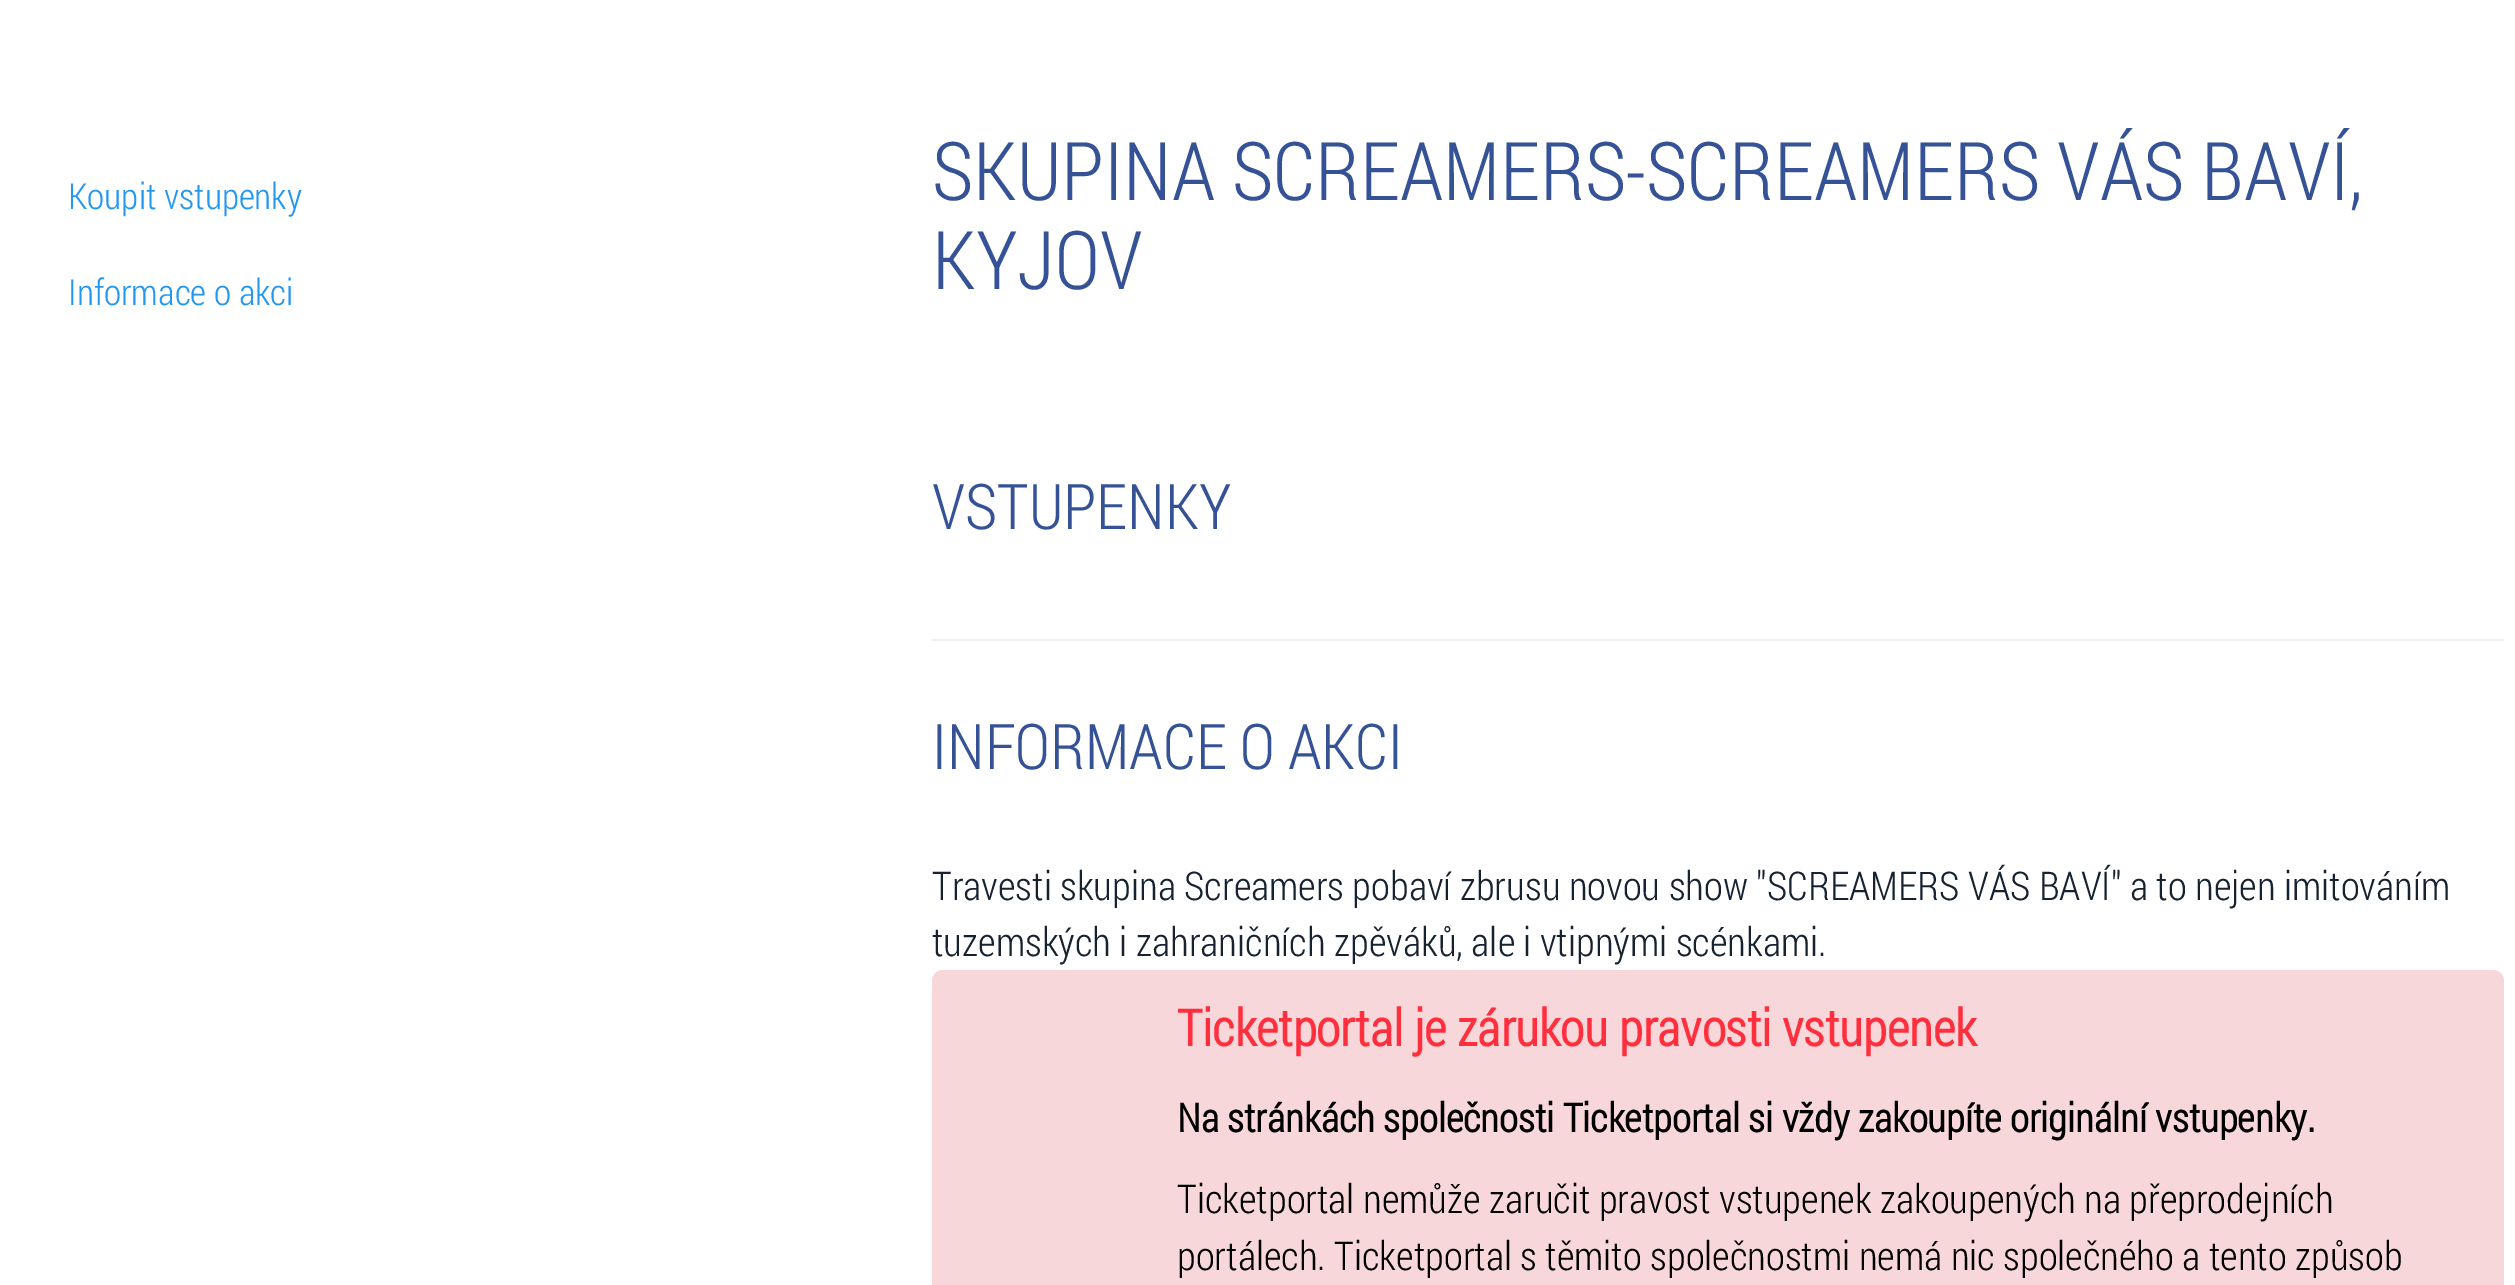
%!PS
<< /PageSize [2515 1285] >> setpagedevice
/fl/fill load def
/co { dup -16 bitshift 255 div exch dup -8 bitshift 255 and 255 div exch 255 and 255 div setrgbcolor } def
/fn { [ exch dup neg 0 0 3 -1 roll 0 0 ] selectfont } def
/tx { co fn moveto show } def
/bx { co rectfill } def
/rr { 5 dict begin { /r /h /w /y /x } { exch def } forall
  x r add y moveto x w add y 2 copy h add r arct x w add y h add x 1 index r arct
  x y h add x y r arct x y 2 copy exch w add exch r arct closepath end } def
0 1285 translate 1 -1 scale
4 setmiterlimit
0 0 2515 1285 16#FFFFFF bx
932 639 1572 2 16#EFEFEF bx
16#F8D7DA co
932 970 1572 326 11 rr fl
(Koupit vstupenky) 68 209 /RobotoCondensed-Light 36 16#2196F3 tx
(Informace o akci) 68 305 /RobotoCondensed-Light 36 16#2196F3 tx
(SKUPINA SCREAMERS-SCREAMERS VÁS BAVÍ,) 932 200 /RobotoCondensed-Light 81 16#345295 tx
(KYJOV) 932 289 /RobotoCondensed-Light 81 16#345295 tx
(VSTUPENKY) 932 529 /RobotoCondensed-Light 63 16#345295 tx
(INFORMACE O AKCI) 932 769 /RobotoCondensed-Light 63 16#345295 tx
(Travesti skupina Screamers pobaví zbrusu novou show "SCREAMERS VÁS BAVÍ" a to nejen imitováním) 932 900 /RobotoCondensed-Light 39.6 16#162230 tx
(tuzemských i zahraničních zpěváků, ale i vtipnými scénkami.) 932 956 /RobotoCondensed-Light 39.6 16#162230 tx
(Ticketportal je zárukou pravosti vstupenek) 1177 1046 /RobotoCondensed-Bold 50.4 16#FF2F3E tx
(Na stránkách společnosti Ticketportal si vždy zakoupíte originální vstupenky.) 1177 1132 /RobotoCondensed-Bold 39.6 16#000000 tx
(Ticketportal nemůže zaručit pravost vstupenek zakoupených na přeprodejních) 1177 1213 /RobotoCondensed-Light 39.6 16#000000 tx
(portálech. Ticketportal s těmito společnostmi nemá nic společného a tento způsob) 1177 1270 /RobotoCondensed-Light 39.6 16#000000 tx
showpage
